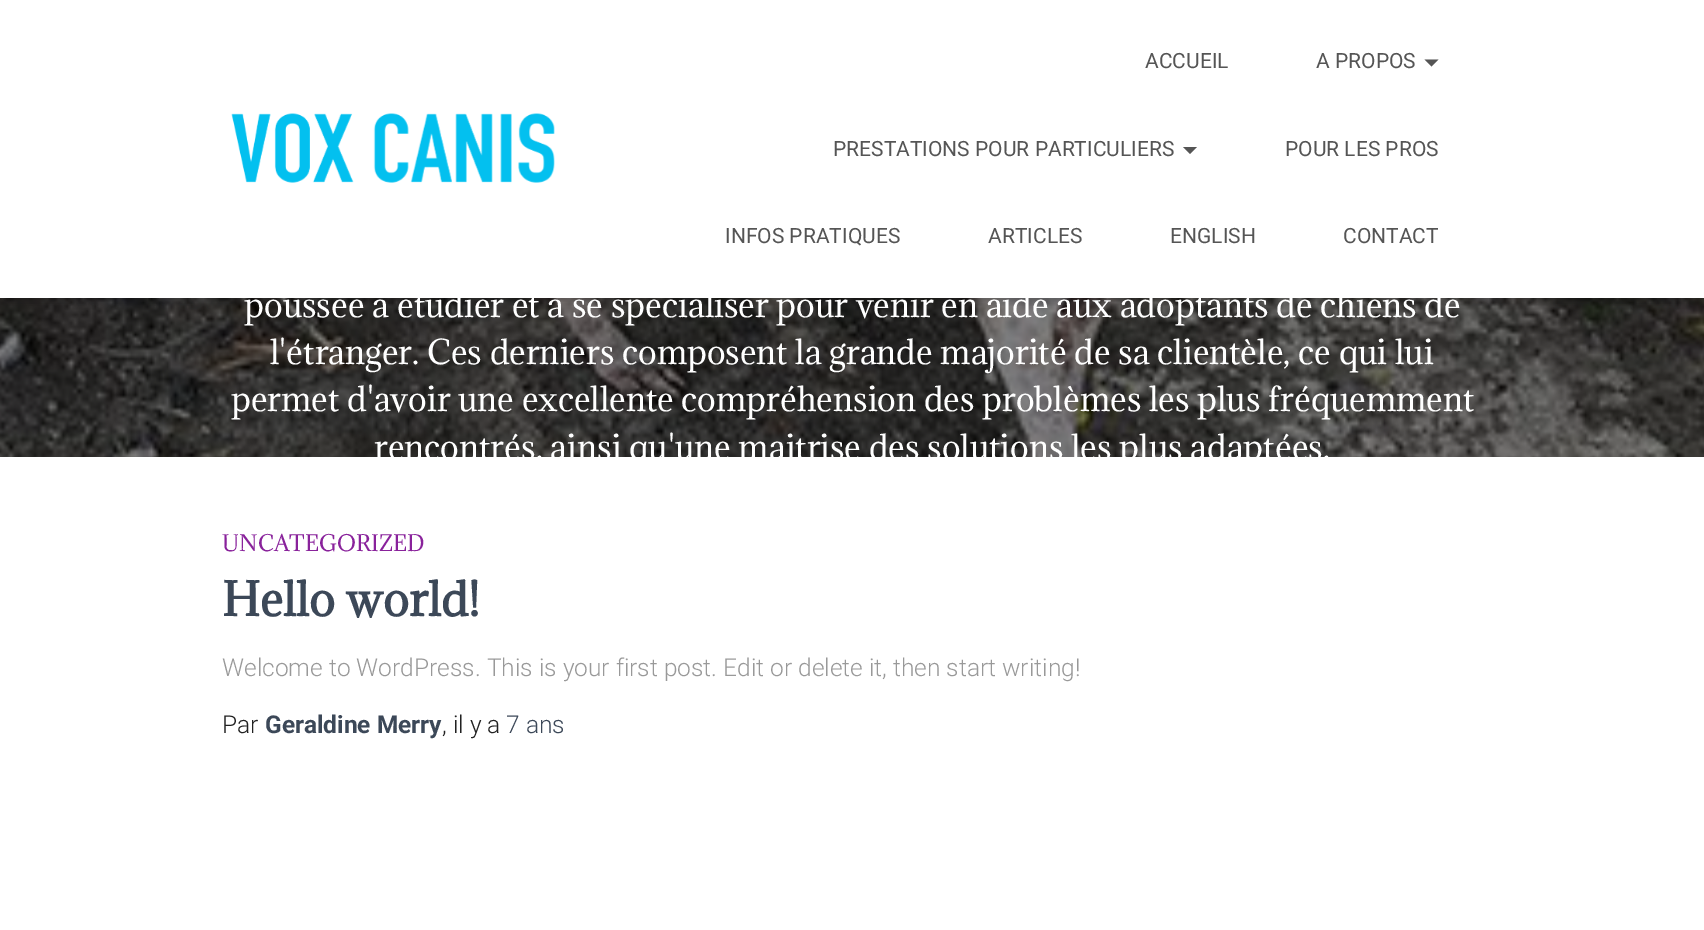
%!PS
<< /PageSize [1704 930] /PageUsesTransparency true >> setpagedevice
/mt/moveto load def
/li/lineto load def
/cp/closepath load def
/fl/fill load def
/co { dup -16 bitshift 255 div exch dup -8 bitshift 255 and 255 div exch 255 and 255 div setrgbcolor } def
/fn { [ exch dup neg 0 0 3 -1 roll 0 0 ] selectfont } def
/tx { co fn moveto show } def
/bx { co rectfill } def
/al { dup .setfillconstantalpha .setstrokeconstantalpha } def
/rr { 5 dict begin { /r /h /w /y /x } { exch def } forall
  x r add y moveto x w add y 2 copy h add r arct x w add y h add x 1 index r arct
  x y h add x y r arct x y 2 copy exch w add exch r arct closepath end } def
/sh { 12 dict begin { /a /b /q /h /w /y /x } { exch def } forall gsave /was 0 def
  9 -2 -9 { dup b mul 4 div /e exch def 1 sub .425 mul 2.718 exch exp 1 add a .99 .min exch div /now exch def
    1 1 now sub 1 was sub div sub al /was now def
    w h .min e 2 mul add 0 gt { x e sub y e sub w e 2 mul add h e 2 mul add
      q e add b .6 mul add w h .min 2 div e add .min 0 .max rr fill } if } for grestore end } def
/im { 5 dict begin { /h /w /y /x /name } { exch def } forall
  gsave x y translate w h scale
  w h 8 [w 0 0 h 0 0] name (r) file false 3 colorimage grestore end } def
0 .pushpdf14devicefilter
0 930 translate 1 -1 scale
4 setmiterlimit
0 0 1704 930 16#FFFFFF bx
(media/2.raw) 0 298 1704 159 im
16#000000 co
4 11 1697 290 0 4.5 .1 sh
0 2 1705 297 0 9 .12 sh
11 12 1683 277 0 9 .42 sh
0 0 1704 298 16#FFFFFF bx
(media/1.raw) 231 113 324 70 im
16#555555 co
1424.5 59.5 mt 1438.5 59.5 li 1431.5 66.5 li cp fl
1183 147 mt 1197 147 li 1190 154 li cp fl
(ACCUEIL) 1145 68 /Roboto-Regular 21 16#555555 tx
(A PROPOS) 1316 68 /Roboto-Regular 21 16#555555 tx
(PRESTATIONS POUR PARTICULIERS) 833 156 /Roboto-Regular 21 16#555555 tx
(POUR LES PROS) 1285 156 /Roboto-Regular 21 16#555555 tx
(INFOS PRATIQUES) 725 243 /Roboto-Regular 21 16#555555 tx
(ARTICLES) 988 243 /Roboto-Regular 21 16#555555 tx
(ENGLISH) 1170 243 /Roboto-Regular 21 16#555555 tx
(CONTACT) 1343 243 /Roboto-Regular 21 16#555555 tx
(poussée à étudier et à se spécialiser pour venir en aide aux adoptants de chiens de) 244 317 /Adamina-Regular 31.5 16#FFFFFF tx
(l'étranger. Ces derniers composent la grande majorité de sa clientèle, ce qui lui) 270 364 /Adamina-Regular 31.5 16#FFFFFF tx
(permet d'avoir une excellente compréhension des problèmes les plus fréquemment) 231 411 /Adamina-Regular 31.5 16#FFFFFF tx
(rencontrés, ainsi qu'une maitrise des solutions les plus adaptées.) 374 459 /Adamina-Regular 31.5 16#FFFFFF tx
(UNCATEGORIZED) 222 551 /Adamina-Regular 21 16#89229B tx
(Hello world!) 222 616 /Adamina-Bold 43.75 16#3C4858 tx
(Welcome to WordPress. This is your first post. Edit or delete it, then start writing!) 222 676 /Roboto-Light 24.5 16#999999 tx
(Par) 222 733 /Roboto-Light 24.5 16#212121 tx
(Geraldine Merry) 265 733 /Roboto-Bold 24.5 16#3C4858 tx
(, il y a) 442 733 /Roboto-Light 24.5 16#212121 tx
(7 ans) 506 733 /Roboto-Light 24.5 16#3C4858 tx
.poppdf14devicefilter showpage
